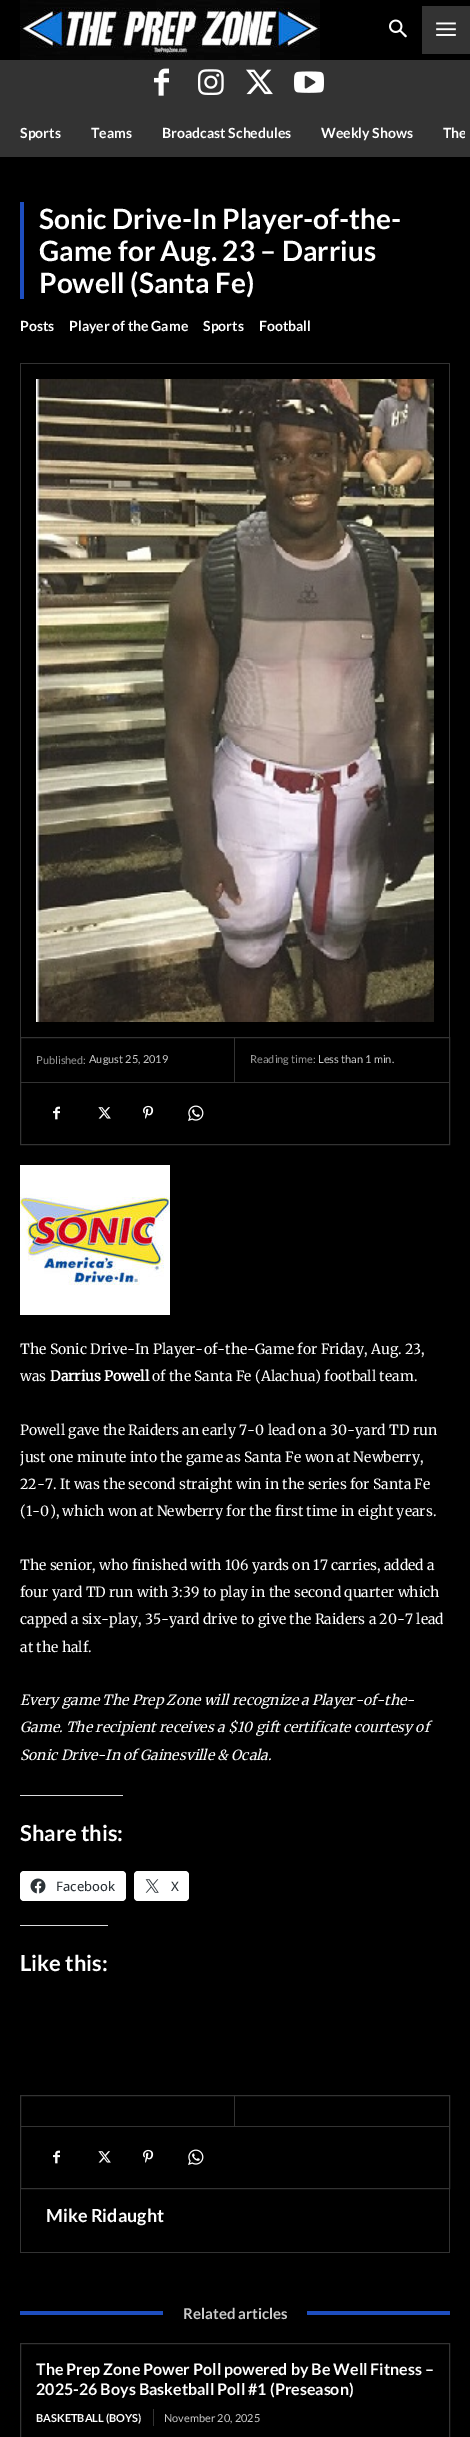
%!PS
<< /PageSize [470 2437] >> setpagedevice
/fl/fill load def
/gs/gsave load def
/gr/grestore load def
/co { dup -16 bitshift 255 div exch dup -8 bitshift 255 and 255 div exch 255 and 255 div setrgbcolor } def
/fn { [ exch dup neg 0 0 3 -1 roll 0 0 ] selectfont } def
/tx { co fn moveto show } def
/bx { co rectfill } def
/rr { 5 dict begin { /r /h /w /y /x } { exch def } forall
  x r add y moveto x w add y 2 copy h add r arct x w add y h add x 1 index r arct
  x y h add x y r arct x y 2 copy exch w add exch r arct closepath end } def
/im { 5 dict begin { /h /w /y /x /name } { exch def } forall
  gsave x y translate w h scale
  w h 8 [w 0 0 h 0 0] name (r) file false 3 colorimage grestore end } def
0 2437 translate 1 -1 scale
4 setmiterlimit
0 0 470 2437 16#000000 bx
(media/1.raw) 20 0 300 60 im
(media/2.raw) 389 19 18 19 im
422 6 48 48 16#333333 bx
(media/3.raw) 436 22 20 14 im
0 60 470 97 16#333333 bx
(media/4.raw) 154 68 15 28 im
(media/5.raw) 198 69 26 26 im
(media/6.raw) 246 69 27 26 im
(media/7.raw) 294 71 30 22 im
20 202 4 97 16#1E4EBF bx
20 363 430 1 16#333333 bx
449 363 1 674 16#333333 bx
20 363 1 674 16#333333 bx
(media/8.raw) 36 379 398 643 im
20.5 1037.5 429 107 rectstroke
234 1038 1 44 16#333333 bx
21 1082 428 1 16#333333 bx
(media/9.raw) 53 1106 7 14 im
(media/10.raw) 98 1107 13 12 im
(media/11.raw) 143 1105 11 14 im
(media/12.raw) 188 1105 16 16 im
(media/13.raw) 20 1165 150 150 im
20 1795 103 1 16#DCDCDE bx
16#FFFFFF co
20 1871 106 30 4 rr fl
(media/14.raw) 30 1878 16 16 im
134 1871 55 30 4 rr fl
(media/15.raw) 145 1879 14 14 im
20 1925 88 1 16#DCDCDE bx
16#333333 co
20.5 2095.5 429 93 rectstroke
234 2096 1 30 16#333333 bx
21 2126 428 1 16#333333 bx
(media/9.raw) 53 2150 7 14 im
(media/10.raw) 98 2151 13 12 im
(media/11.raw) 143 2149 11 14 im
(media/12.raw) 188 2149 16 16 im
449 2189 1 64 16#333333 bx
20 2252 430 1 16#333333 bx
20 2189 1 64 16#333333 bx
20 2311 143 4 16#1E4EBF bx
307 2311 143 4 16#1E4EBF bx
16#333333 co
20.5 2343.5 429 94 rectstroke
153 2409 1 17 16#333333 bx
(Sports) 20 138 /Lato-Bold 14 16#FFFFFF tx
(Teams) 91 138 /Lato-Bold 14 16#FFFFFF tx
(Broadcast Schedules) 162 138 /Lato-Bold 14 16#FFFFFF tx
(Weekly Shows) 321 138 /Lato-Bold 14 16#FFFFFF tx
gs
5 109 460 48 rectclip
(The) 443 138 /Lato-Bold 14 16#FFFFFF tx
gr
(Sonic Drive-In Player-of-the-) 39 229 /Lato-Bold 28 16#FFFFFF tx
(Game for Aug. 23 – Darrius) 39 261 /Lato-Bold 28 16#FFFFFF tx
(Powell \(Santa Fe\)) 39 293 /Lato-Bold 28 16#FFFFFF tx
(Posts) 20 331 /Lato-Bold 14 16#FFFFFF tx
(Player of the Game) 69 331 /Lato-Bold 14 16#FFFFFF tx
(Sports) 203 331 /Lato-Bold 14 16#FFFFFF tx
(Football) 259 331 /Lato-Bold 14 16#FFFFFF tx
(Published:) 36 1064 /Lato-Regular 11 16#999999 tx
(August 25, 2019) 89 1063 /Lato-Regular 11 16#CCCCCC tx
(Reading time:) 250 1063 /Lato-Regular 11 16#999999 tx
(Less than 1 min.) 318 1063 /Lato-Regular 11 16#CCCCCC tx
(The Sonic Drive-In Player-of-the-Game for Friday, Aug. 23,) 20 1354 /Merriweather-Light 14 16#FFFFFF tx
(was) 20 1381 /Merriweather-Light 14 16#FFFFFF tx
(Darrius Powell) 50 1381 /Merriweather-Bold 14 16#FFFFFF tx
(of the Santa Fe \(Alachua\) football team.) 152 1381 /Merriweather-Light 14 16#FFFFFF tx
(Powell gave the Raiders an early 7-0 lead on a 30-yard TD run) 20 1435 /Merriweather-Light 14 16#FFFFFF tx
(just one minute into the game as Santa Fe won at Newberry,) 20 1462 /Merriweather-Light 14 16#FFFFFF tx
(22-7. It was the second straight win in the series for Santa Fe) 20 1489 /Merriweather-Light 14 16#FFFFFF tx
(\(1-0\), which won at Newberry for the first time in eight years.) 20 1516 /Merriweather-Light 14 16#FFFFFF tx
(The senior, who finished with 106 yards on 17 carries, added a) 20 1570 /Merriweather-Light 14 16#FFFFFF tx
(four yard TD run with 3:39 to play in the second quarter which) 20 1597 /Merriweather-Light 14 16#FFFFFF tx
(capped a six-play, 35-yard drive to give the Raiders a 20-7 lead) 20 1624 /Merriweather-Light 14 16#FFFFFF tx
(at the half.) 20 1652 /Merriweather-Light 14 16#FFFFFF tx
(Every game The Prep Zone will recognize a Player-of-the-) 20 1705 /Merriweather-LightItalic 14 16#FFFFFF tx
(Game. The recipient receives a $10 gift certificate courtesy of) 20 1732 /Merriweather-LightItalic 14 16#FFFFFF tx
(Sonic Drive-In of Gainesville & Ocala.) 20 1760 /Merriweather-LightItalic 14 16#FFFFFF tx
(Share this:) 20 1841 /Lato-Bold 22 16#FFFFFF tx
(Facebook) 56 1891 /OpenSans-Medium 13 16#2C3338 tx
(X) 171 1891 /OpenSans-Medium 13 16#2C3338 tx
(Like this:) 20 1971 /Lato-Bold 22 16#FFFFFF tx
(Mike Ridaught) 46 2222 /Lato-Bold 18 16#FFFFFF tx
(Related articles) 183 2319 /Lato-Bold 15 16#CCCCCC tx
(The Prep Zone Power Poll powered by Be Well Fitness –) 36 2375 /Lato-Bold 16 16#FFFFFF tx
(2025-26 Boys Basketball Poll #1 \(Preseason\)) 36 2395 /Lato-Bold 16 16#FFFFFF tx
(BASKETBALL \(BOYS\)) 36 2422 /Lato-Bold 11 16#FFFFFF tx
(November 20, 2025) 164 2422 /Lato-Regular 11 16#CCCCCC tx
showpage
